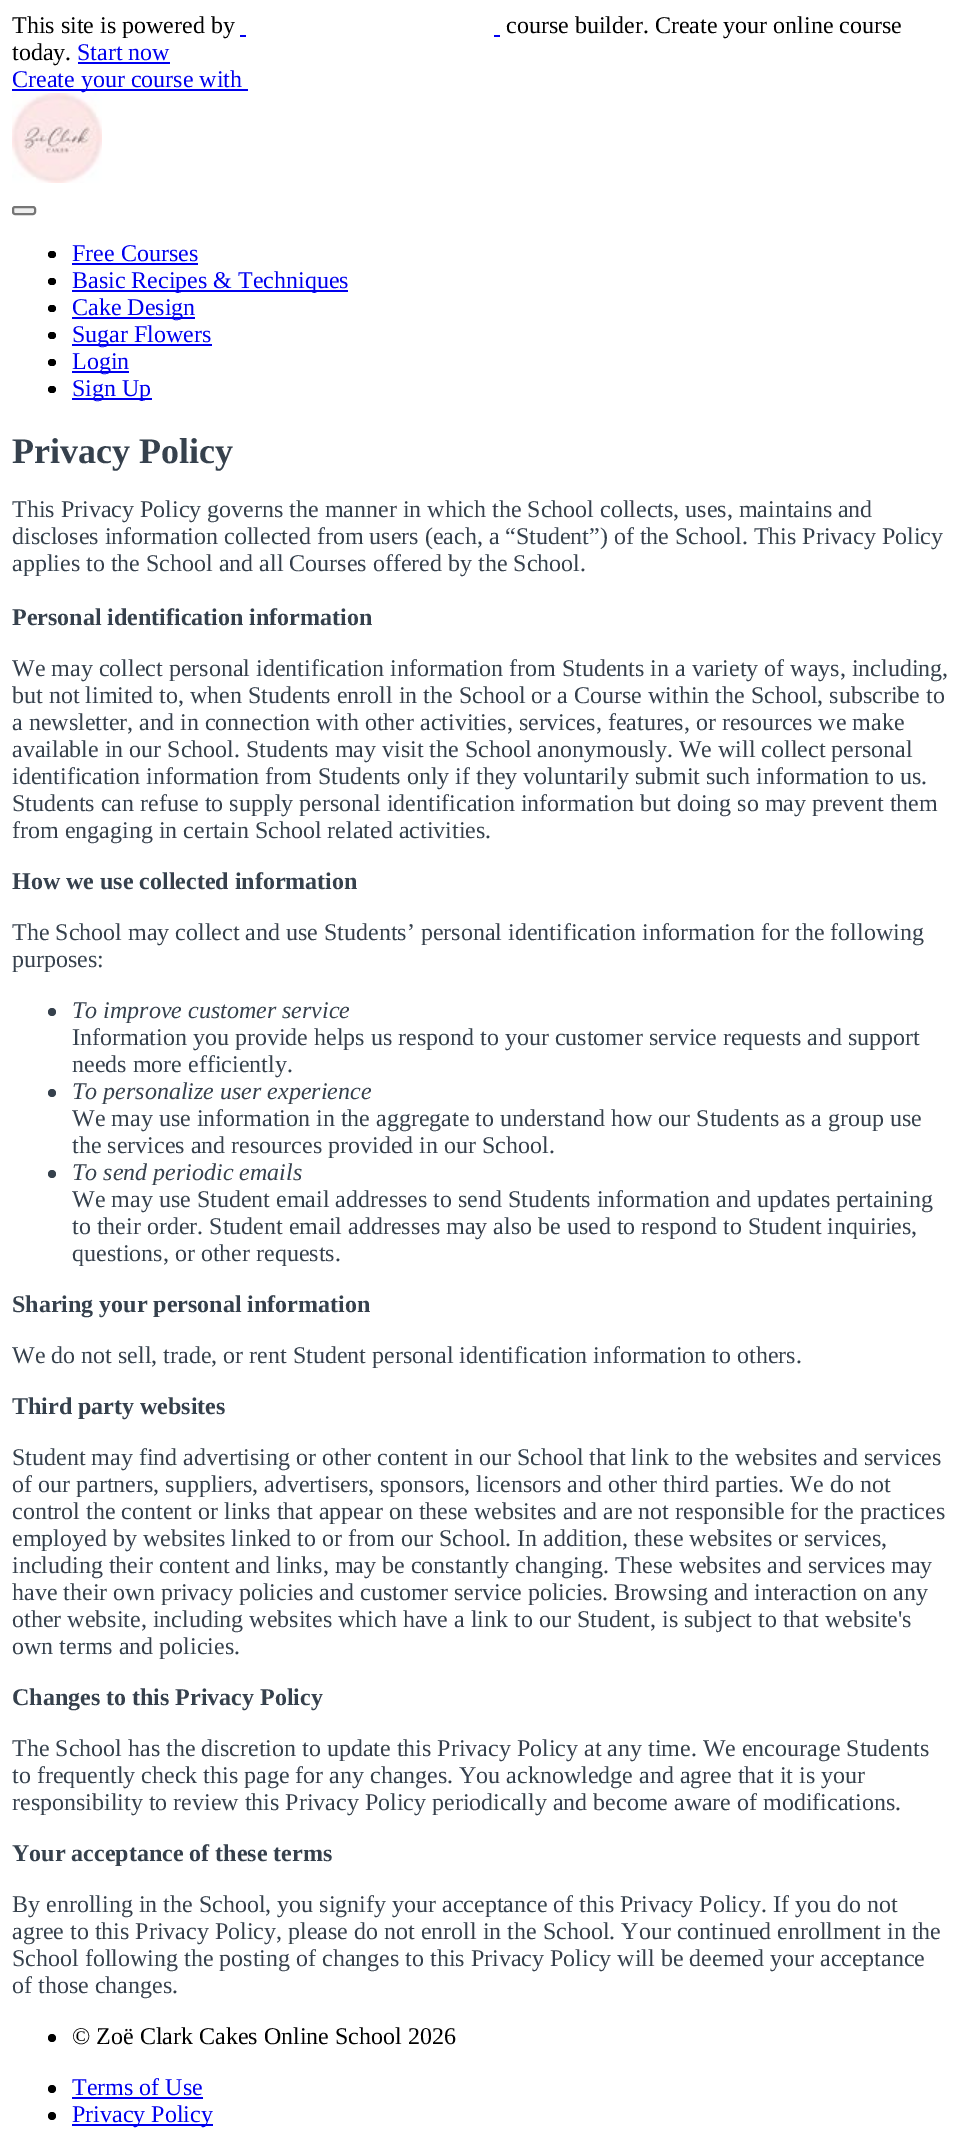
%!PS
<< /PageSize [962 2139] >> setpagedevice
/fl/fill load def
/st/stroke load def
/gs/gsave load def
/gr/grestore load def
/lw/setlinewidth load def
/co { dup -16 bitshift 255 div exch dup -8 bitshift 255 and 255 div exch 255 and 255 div setrgbcolor } def
/fn { [ exch dup neg 0 0 3 -1 roll 0 0 ] selectfont } def
/tx { co fn moveto show } def
/bx { co rectfill } def
/ci { newpath 0 360 arc closepath } def
/rr { 5 dict begin { /r /h /w /y /x } { exch def } forall
  x r add y moveto x w add y 2 copy h add r arct x w add y h add x 1 index r arct
  x y h add x y r arct x y 2 copy exch w add exch r arct closepath end } def
/im { 5 dict begin { /h /w /y /x /name } { exch def } forall
  gsave x y translate w h scale
  w h 8 [w 0 0 h 0 0] name (r) file false 3 colorimage grestore end } def
0 2139 translate 1 -1 scale
4 setmiterlimit
0 0 962 2139 16#FFFFFF bx
240 35 6 2 16#0000EE bx
494 35 6 2 16#0000EE bx
78 62 92 2 16#0000EE bx
12 89 236 2 16#0000EE bx
(media/1.raw) 12 93 90 90 im
16#EFEFEF co
13 207 22 7 2 rr gs fl gr
16#767676 co
2 lw
st
16#000000 co
48 251 8 7 3.5 rr fl
72 263 126 2 16#0000EE bx
16#000000 co
48 278 8 7 3.5 rr fl
72 290 276 2 16#0000EE bx
16#000000 co
48 305 8 7 3.5 rr fl
72 317 123 2 16#0000EE bx
16#000000 co
48 332 8 7 3.5 rr fl
72 344 140 2 16#0000EE bx
16#000000 co
48 359 8 7 3.5 rr fl
72 371 57 2 16#0000EE bx
16#000000 co
48 386 8 7 3.5 rr fl
72 398 80 2 16#0000EE bx
16#36414D co
52 1012 4 ci fl
52 1093 4 ci fl
52 1174 4 ci fl
16#000000 co
52 2038 4 ci fl
52 2089 4 ci fl
72 2097 131 2 16#0000EE bx
16#000000 co
52 2116 4 ci fl
72 2124 141 2 16#0000EE bx
(This site is powered by) 12 33 /LiberationSerif-Regular 24 16#000000 tx
(course builder. Create your online course) 506 33 /LiberationSerif-Regular 24 16#000000 tx
(today.) 12 60 /LiberationSerif-Regular 24 16#000000 tx
(Start now) 77 60 /LiberationSerif-Regular 24 16#0000EE tx
(Create your course with) 12 87 /LiberationSerif-Regular 24 16#0000EE tx
(Free Courses) 72 261 /LiberationSerif-Regular 24 16#0000EE tx
(Basic Recipes & Techniques) 72 288 /LiberationSerif-Regular 24 16#0000EE tx
(Cake Design) 72 315 /LiberationSerif-Regular 24 16#0000EE tx
(Sugar Flowers) 72 342 /LiberationSerif-Regular 24 16#0000EE tx
(Login) 72 369 /LiberationSerif-Regular 24 16#0000EE tx
(Sign Up) 72 396 /LiberationSerif-Regular 24 16#0000EE tx
(Privacy Policy) 12 463 /LiberationSerif-Bold 36 16#36414D tx
(This Privacy Policy governs the manner in which the School collects, uses, maintains and) 12 517 /LiberationSerif-Regular 24 16#36414D tx
(discloses information collected from users \(each, a “Student”\) of the School. This Privacy Policy) 12 544 /LiberationSerif-Regular 24 16#36414D tx
(applies to the School and all Courses offered by the School.) 12 571 /LiberationSerif-Regular 24 16#36414D tx
(Personal identification information) 12 625 /LiberationSerif-Bold 24 16#36414D tx
(We may collect personal identification information from Students in a variety of ways, including,) 12 676 /LiberationSerif-Regular 24 16#36414D tx
(but not limited to, when Students enroll in the School or a Course within the School, subscribe to) 12 703 /LiberationSerif-Regular 24 16#36414D tx
(a newsletter, and in connection with other activities, services, features, or resources we make) 12 730 /LiberationSerif-Regular 24 16#36414D tx
(available in our School. Students may visit the School anonymously. We will collect personal) 12 757 /LiberationSerif-Regular 24 16#36414D tx
(identification information from Students only if they voluntarily submit such information to us.) 12 784 /LiberationSerif-Regular 24 16#36414D tx
(Students can refuse to supply personal identification information but doing so may prevent them) 12 811 /LiberationSerif-Regular 24 16#36414D tx
(from engaging in certain School related activities.) 12 838 /LiberationSerif-Regular 24 16#36414D tx
(How we use collected information) 12 889 /LiberationSerif-Bold 24 16#36414D tx
(The School may collect and use Students’ personal identification information for the following) 12 940 /LiberationSerif-Regular 24 16#36414D tx
(purposes:) 12 967 /LiberationSerif-Regular 24 16#36414D tx
(To improve customer service) 72 1018 /LiberationSerif-Italic 24 16#36414D tx
(Information you provide helps us respond to your customer service requests and support) 72 1045 /LiberationSerif-Regular 24 16#36414D tx
(needs more efficiently.) 72 1072 /LiberationSerif-Regular 24 16#36414D tx
(To personalize user experience) 72 1099 /LiberationSerif-Italic 24 16#36414D tx
(We may use information in the aggregate to understand how our Students as a group use) 72 1126 /LiberationSerif-Regular 24 16#36414D tx
(the services and resources provided in our School.) 72 1153 /LiberationSerif-Regular 24 16#36414D tx
(To send periodic emails) 72 1180 /LiberationSerif-Italic 24 16#36414D tx
(We may use Student email addresses to send Students information and updates pertaining) 72 1207 /LiberationSerif-Regular 24 16#36414D tx
(to their order. Student email addresses may also be used to respond to Student inquiries,) 72 1234 /LiberationSerif-Regular 24 16#36414D tx
(questions, or other requests.) 72 1261 /LiberationSerif-Regular 24 16#36414D tx
(Sharing your personal information) 12 1312 /LiberationSerif-Bold 24 16#36414D tx
(We do not sell, trade, or rent Student personal identification information to others.) 12 1363 /LiberationSerif-Regular 24 16#36414D tx
(Third party websites) 12 1414 /LiberationSerif-Bold 24 16#36414D tx
(Student may find advertising or other content in our School that link to the websites and services) 12 1465 /LiberationSerif-Regular 24 16#36414D tx
(of our partners, suppliers, advertisers, sponsors, licensors and other third parties. We do not) 12 1492 /LiberationSerif-Regular 24 16#36414D tx
(control the content or links that appear on these websites and are not responsible for the practices) 12 1519 /LiberationSerif-Regular 24 16#36414D tx
(employed by websites linked to or from our School. In addition, these websites or services,) 12 1546 /LiberationSerif-Regular 24 16#36414D tx
(including their content and links, may be constantly changing. These websites and services may) 12 1573 /LiberationSerif-Regular 24 16#36414D tx
(have their own privacy policies and customer service policies. Browsing and interaction on any) 12 1600 /LiberationSerif-Regular 24 16#36414D tx
(other website, including websites which have a link to our Student, is subject to that website's) 12 1627 /LiberationSerif-Regular 24 16#36414D tx
(own terms and policies.) 12 1654 /LiberationSerif-Regular 24 16#36414D tx
(Changes to this Privacy Policy) 12 1705 /LiberationSerif-Bold 24 16#36414D tx
(The School has the discretion to update this Privacy Policy at any time. We encourage Students) 12 1756 /LiberationSerif-Regular 24 16#36414D tx
(to frequently check this page for any changes. You acknowledge and agree that it is your) 12 1783 /LiberationSerif-Regular 24 16#36414D tx
(responsibility to review this Privacy Policy periodically and become aware of modifications.) 12 1810 /LiberationSerif-Regular 24 16#36414D tx
(Your acceptance of these terms) 12 1861 /LiberationSerif-Bold 24 16#36414D tx
(By enrolling in the School, you signify your acceptance of this Privacy Policy. If you do not) 12 1912 /LiberationSerif-Regular 24 16#36414D tx
(agree to this Privacy Policy, please do not enroll in the School. Your continued enrollment in the) 12 1939 /LiberationSerif-Regular 24 16#36414D tx
(School following the posting of changes to this Privacy Policy will be deemed your acceptance) 12 1966 /LiberationSerif-Regular 24 16#36414D tx
(of those changes.) 12 1993 /LiberationSerif-Regular 24 16#36414D tx
(© Zoë Clark Cakes Online School 2026) 72 2044 /LiberationSerif-Regular 24 16#000000 tx
(Terms of Use) 72 2095 /LiberationSerif-Regular 24 16#0000EE tx
(Privacy Policy) 72 2122 /LiberationSerif-Regular 24 16#0000EE tx
showpage
